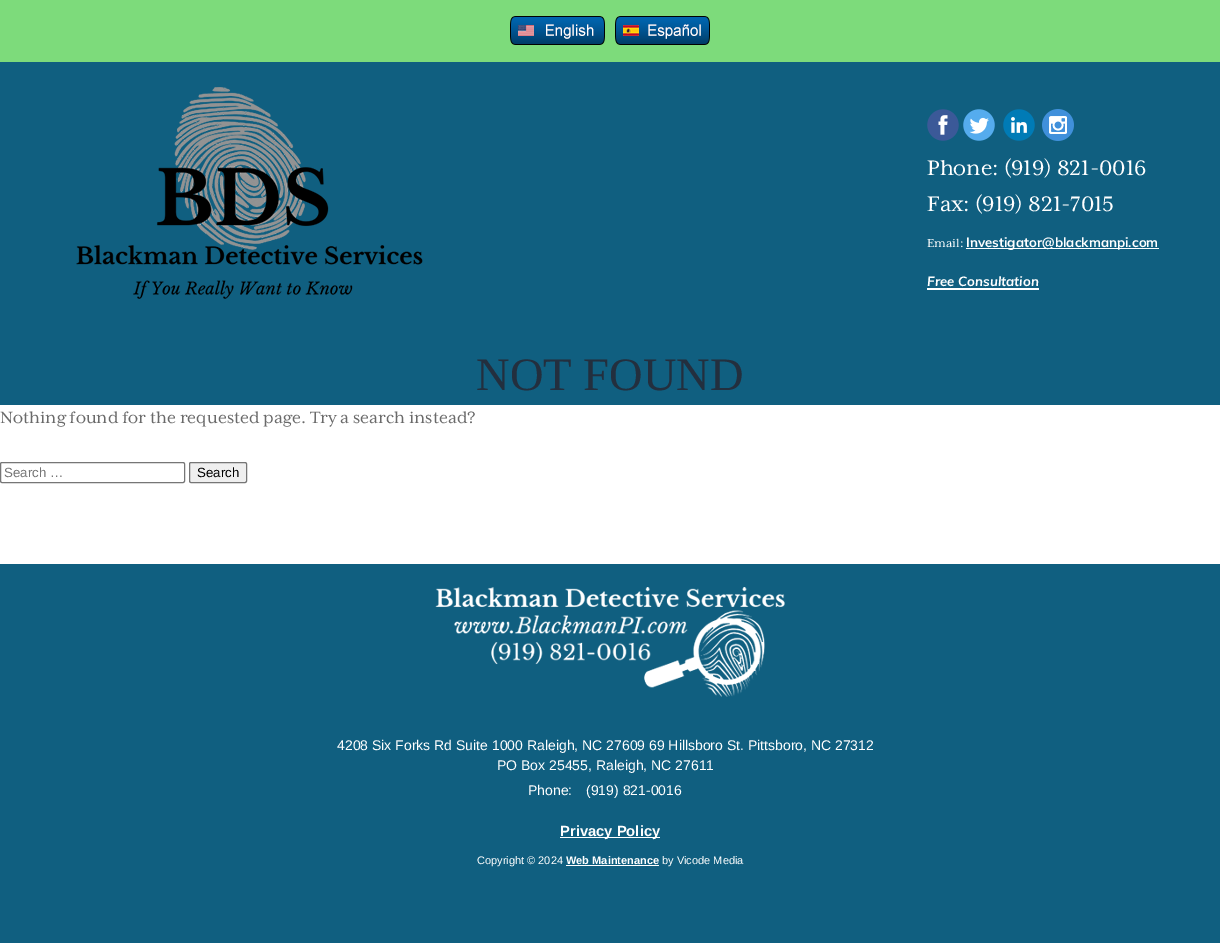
%!PS
<< /PageSize [1220 943] >> setpagedevice
/fl/fill load def
/st/stroke load def
/gs/gsave load def
/gr/grestore load def
/co { dup -16 bitshift 255 div exch dup -8 bitshift 255 and 255 div exch 255 and 255 div setrgbcolor } def
/fn { [ exch dup neg 0 0 3 -1 roll 0 0 ] selectfont } def
/tx { co fn moveto show } def
/bx { co rectfill } def
/rr { 5 dict begin { /r /h /w /y /x } { exch def } forall
  x r add y moveto x w add y 2 copy h add r arct x w add y h add x 1 index r arct
  x y h add x y r arct x y 2 copy exch w add exch r arct closepath end } def
/im { 5 dict begin { /h /w /y /x /name } { exch def } forall
  gsave x y translate w h scale
  w h 8 [w 0 0 h 0 0] name (r) file false 3 colorimage grestore end } def
0 943 translate 1 -1 scale
4 setmiterlimit
0 0 1220 943 16#FFFFFF bx
0 0 1220 62 16#7DDB7B bx
(media/1.raw) 510 16 95 29 im
(media/2.raw) 615 16 95 29 im
0 62 1220 343 16#105F80 bx
(media/3.raw) 76 87 347 212 im
(media/4.raw) 927 109 32 32 im
(media/5.raw) 963 109 32 32 im
(media/6.raw) 1003 109 32 32 im
(media/7.raw) 1042 109 32 32 im
966 248 193 1 16#FFFFFF bx
927 288 112 2 16#FFFFFF bx
16#767676 co
.5 462.5 184 20 1.5 rr st
16#EFEFEF co
189.5 462.5 57 20 1.5 rr gs fl gr
16#767676 co
st
0 564 1220 379 16#105F80 bx
(media/8.raw) 435 587 350 110 im
560 837 100 1 16#FFFFFF bx
566 865 93 1 16#FFFFFF bx
(Phone: \(919\) 821-0016) 927 175 /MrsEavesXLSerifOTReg-Regular 24 16#FFFFFF tx
(Fax: \(919\) 821-7015) 927 211 /MrsEavesXLSerifOTReg-Regular 24 16#FFFFFF tx
(Email:) 927 247 /MrsEavesXLSerifOTReg-Regular 13.3 16#FFFFFF tx
(Investigator@blackmanpi.com) 966 247 /Muli-Bold 13.3 16#FFFFFF tx
(Free Consultation) 927 286 /Muli-BoldItalic 13.3 16#FFFFFF tx
(NOT FOUND) 476 390 /LiberationSerif-Regular 46.5 16#232F3E tx
(Nothing found for the requested page. Try a search instead?) 0 423 /MrsEavesXLSerifOTReg-Regular 18.7 16#6A6A6A tx
(Search …) 4 477 /LiberationSans-Regular 13.3 16#757575 tx
(Search) 197 477 /LiberationSans-Regular 13.3 16#000000 tx
(4208 Six Forks Rd Suite 1000 Raleigh, NC 27609 69 Hillsboro St. Pittsboro, NC 27312) 337 750 /LiberationSans-Regular 14 16#FFFFFF tx
(PO Box 25455, Raleigh, NC 27611) 497 770 /LiberationSans-Regular 14 16#FFFFFF tx
(Phone:) 528 795 /LiberationSans-Regular 14 16#FFFFFF tx
(\(919\) 821-0016) 586 795 /LiberationSans-Regular 14 16#FFFFFF tx
(Privacy Policy) 560 836 /LiberationSans-Bold 14.75 16#FFFFFF tx
(Copyright © 2024) 477 864 /LiberationSans-Regular 11 16#FFFFFF tx
(Web Maintenance) 566 864 /LiberationSans-Bold 11 16#FFFFFF tx
(by Vicode Media) 662 864 /LiberationSans-Regular 11 16#FFFFFF tx
showpage
